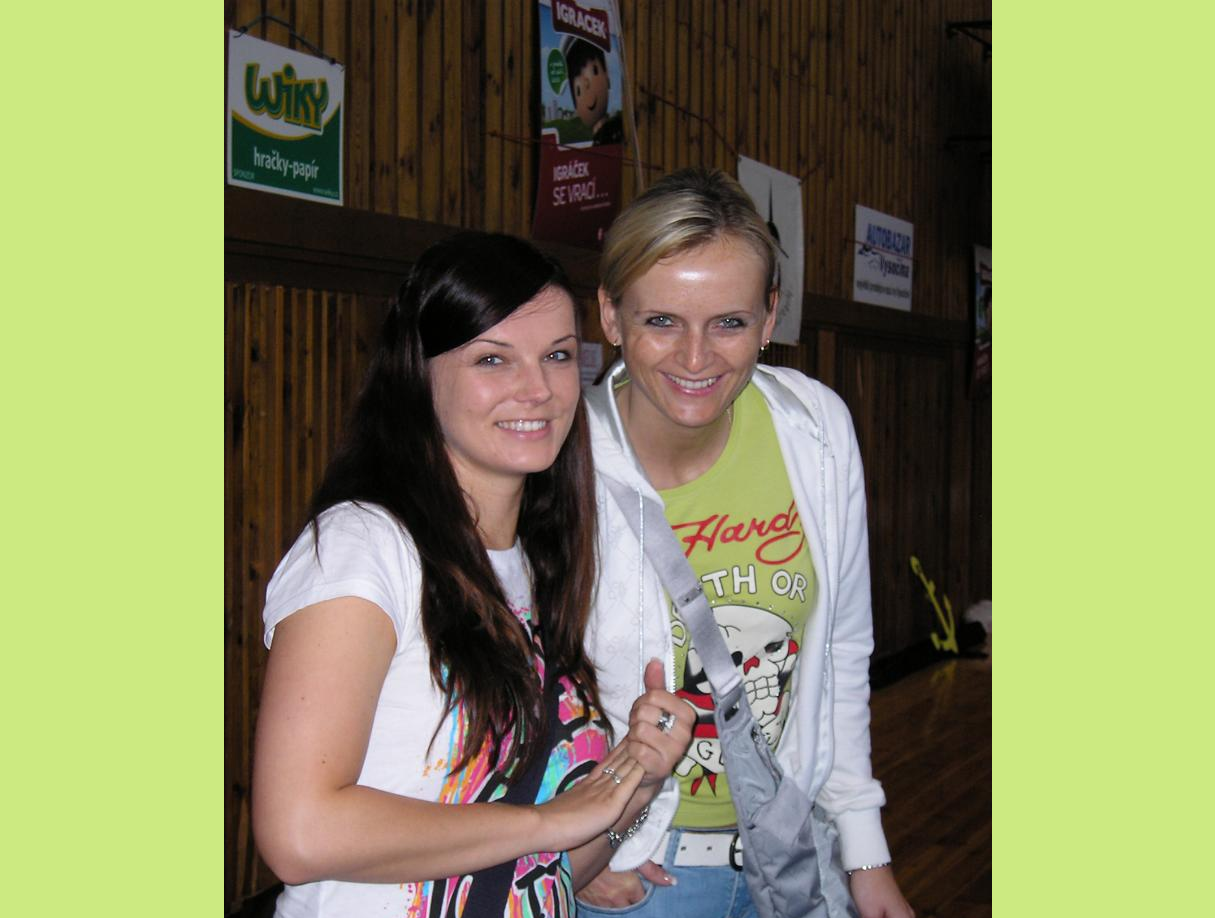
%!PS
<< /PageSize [1215 918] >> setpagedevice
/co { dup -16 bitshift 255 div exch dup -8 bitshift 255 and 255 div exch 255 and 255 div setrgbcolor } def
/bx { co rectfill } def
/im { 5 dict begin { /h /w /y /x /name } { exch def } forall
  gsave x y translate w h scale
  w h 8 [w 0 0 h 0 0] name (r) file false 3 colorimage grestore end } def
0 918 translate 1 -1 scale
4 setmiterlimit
0 0 1215 918 16#CCEA81 bx
(media/1.raw) 224 0 768 918 im
showpage
